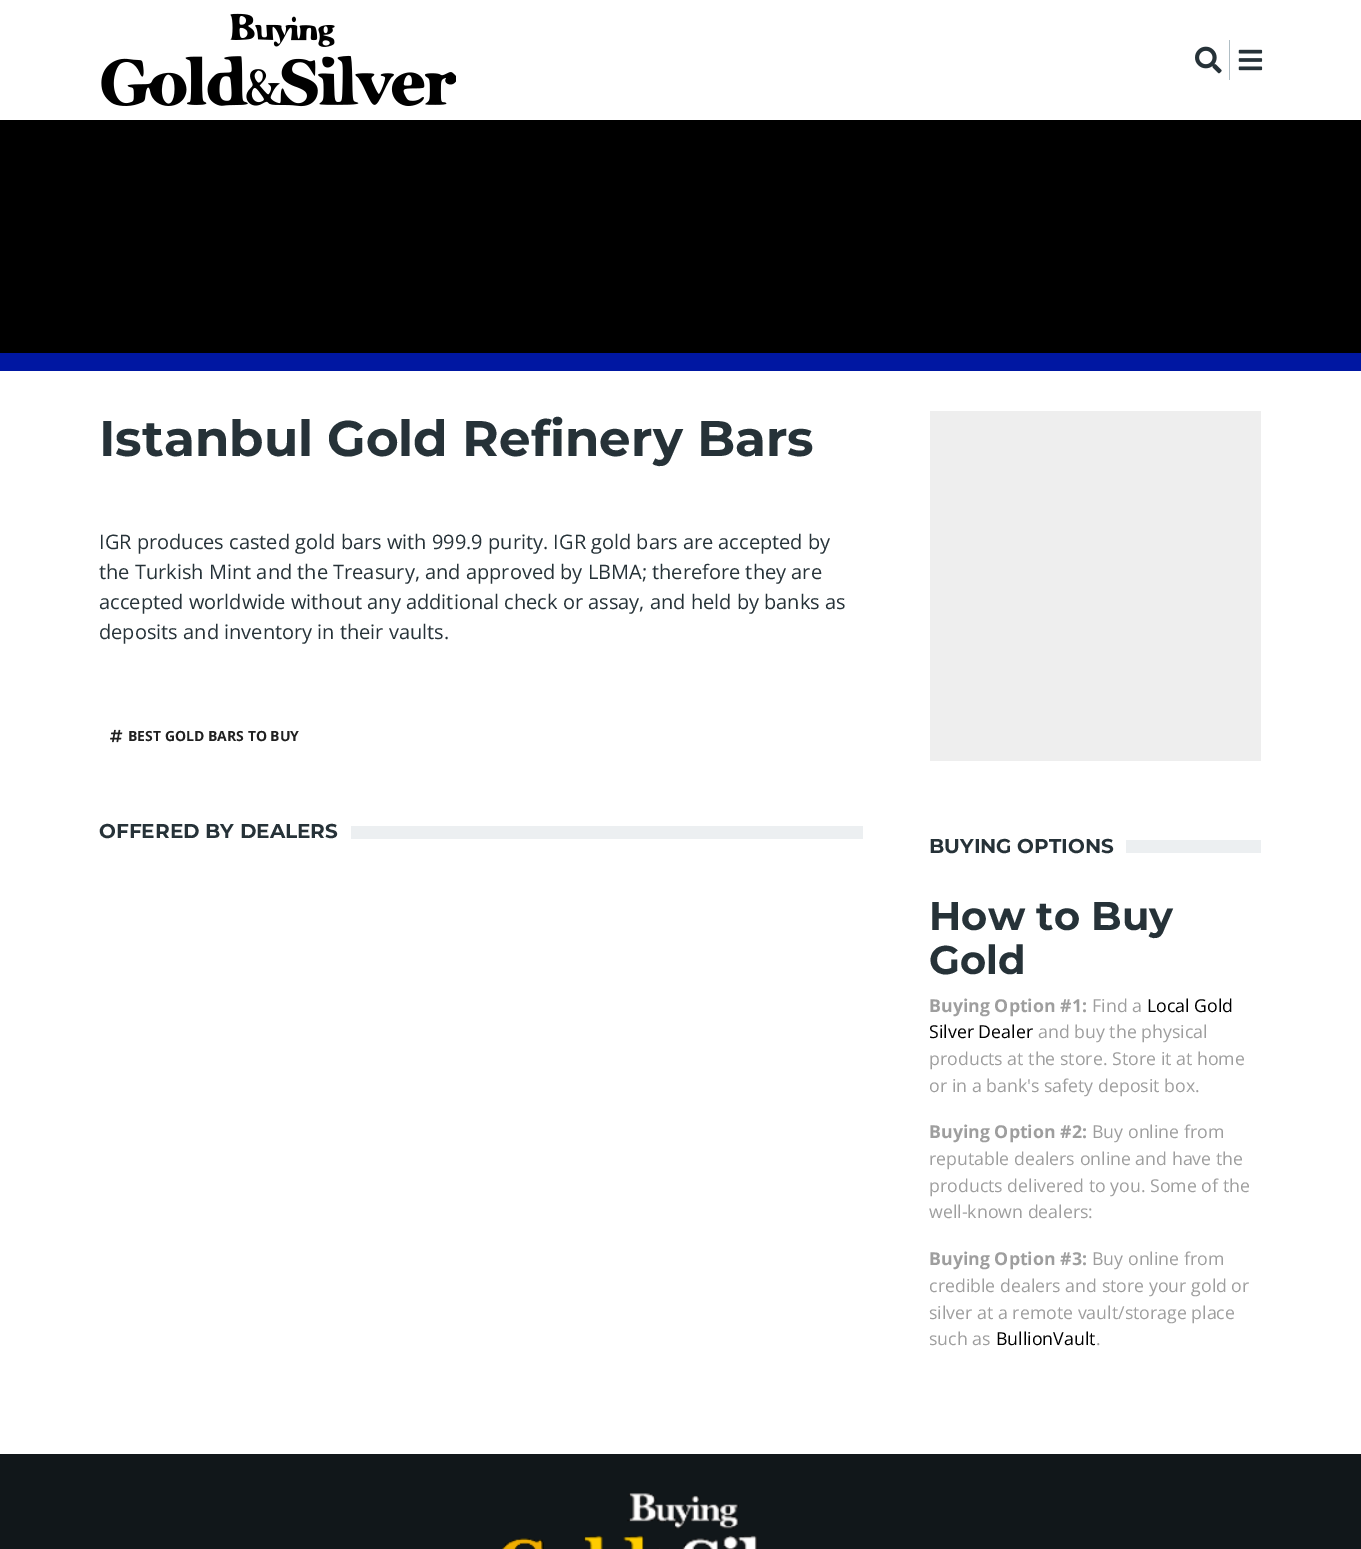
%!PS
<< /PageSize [1361 1549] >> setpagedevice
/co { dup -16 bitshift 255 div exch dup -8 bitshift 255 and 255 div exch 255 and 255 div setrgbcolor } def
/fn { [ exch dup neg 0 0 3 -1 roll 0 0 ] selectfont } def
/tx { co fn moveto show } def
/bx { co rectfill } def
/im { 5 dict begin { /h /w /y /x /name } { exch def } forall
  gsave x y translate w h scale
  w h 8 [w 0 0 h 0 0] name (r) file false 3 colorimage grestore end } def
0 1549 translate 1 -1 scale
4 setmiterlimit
0 0 1361 1549 16#FFFFFF bx
(media/1.raw) 101 13 355 94 im
(media/2.raw) 1195 46 27 28 im
1229 40 1 40 16#B0BEC5 bx
(media/3.raw) 1238 49 25 22 im
0 120 1361 233 16#000000 bx
0 353 1361 18 16#0017A2 bx
(media/4.raw) 110 729 13 14 im
351 826 512 13 16#ECEFF1 bx
930 411 331 350 16#EEEEEE bx
1126 840 135 13 16#ECEFF1 bx
0 1454 1361 95 16#11171A bx
(media/5.raw) 502 1493 256 56 im
(Istanbul Gold Refinery Bars) 99 456 /Montserrat-Bold 50 16#263238 tx
(IGR produces casted gold bars with 999.9 purity. IGR gold bars are accepted by) 99 549 /OpenSans-Regular 20 16#263238 tx
(the Turkish Mint and the Treasury, and approved by LBMA; therefore they are) 99 579 /OpenSans-Regular 20 16#263238 tx
(accepted worldwide without any additional check or assay, and held by banks as) 99 609 /OpenSans-Regular 20 16#263238 tx
(deposits and inventory in their vaults.) 99 639 /OpenSans-Regular 20 16#263238 tx
(BEST GOLD BARS TO BUY) 128 741 /OpenSans-Bold 14 16#212121 tx
(OFFERED BY DEALERS) 99 838 /Montserrat-Bold 20 16#263238 tx
(BUYING OPTIONS) 929 853 /Montserrat-Bold 20 16#263238 tx
(How to Buy) 929 930 /Montserrat-Bold 40 16#263238 tx
(Gold) 929 974 /Montserrat-Bold 40 16#263238 tx
(Buying Option #1:) 929 1012 /OpenSans-Bold 17.75 16#9E9E9E tx
(Find a) 1092 1012 /OpenSans-Regular 17.75 16#9E9E9E tx
(Local Gold) 1147 1012 /OpenSans-Regular 17.75 16#000000 tx
(Silver Dealer) 929 1038 /OpenSans-Regular 17.75 16#000000 tx
(and buy the physical) 1038 1038 /OpenSans-Regular 17.75 16#9E9E9E tx
(products at the store. Store it at home) 929 1065 /OpenSans-Regular 17.75 16#9E9E9E tx
(or in a bank's safety deposit box.) 929 1092 /OpenSans-Regular 17.75 16#9E9E9E tx
(Buying Option #2:) 929 1138 /OpenSans-Bold 17.75 16#9E9E9E tx
(Buy online from) 1092 1138 /OpenSans-Regular 17.75 16#9E9E9E tx
(reputable dealers online and have the) 929 1165 /OpenSans-Regular 17.75 16#9E9E9E tx
(products delivered to you. Some of the) 929 1192 /OpenSans-Regular 17.75 16#9E9E9E tx
(well-known dealers:) 929 1218 /OpenSans-Regular 17.75 16#9E9E9E tx
(Buying Option #3:) 929 1265 /OpenSans-Bold 17.75 16#9E9E9E tx
(Buy online from) 1092 1265 /OpenSans-Regular 17.75 16#9E9E9E tx
(credible dealers and store your gold or) 929 1292 /OpenSans-Regular 17.75 16#9E9E9E tx
(silver at a remote vault/storage place) 929 1319 /OpenSans-Regular 17.75 16#9E9E9E tx
(such as) 929 1345 /OpenSans-Regular 17.75 16#9E9E9E tx
(BullionVault) 996 1345 /OpenSans-Regular 17.75 16#000000 tx
(.) 1096 1345 /OpenSans-Regular 17.75 16#9E9E9E tx
showpage
